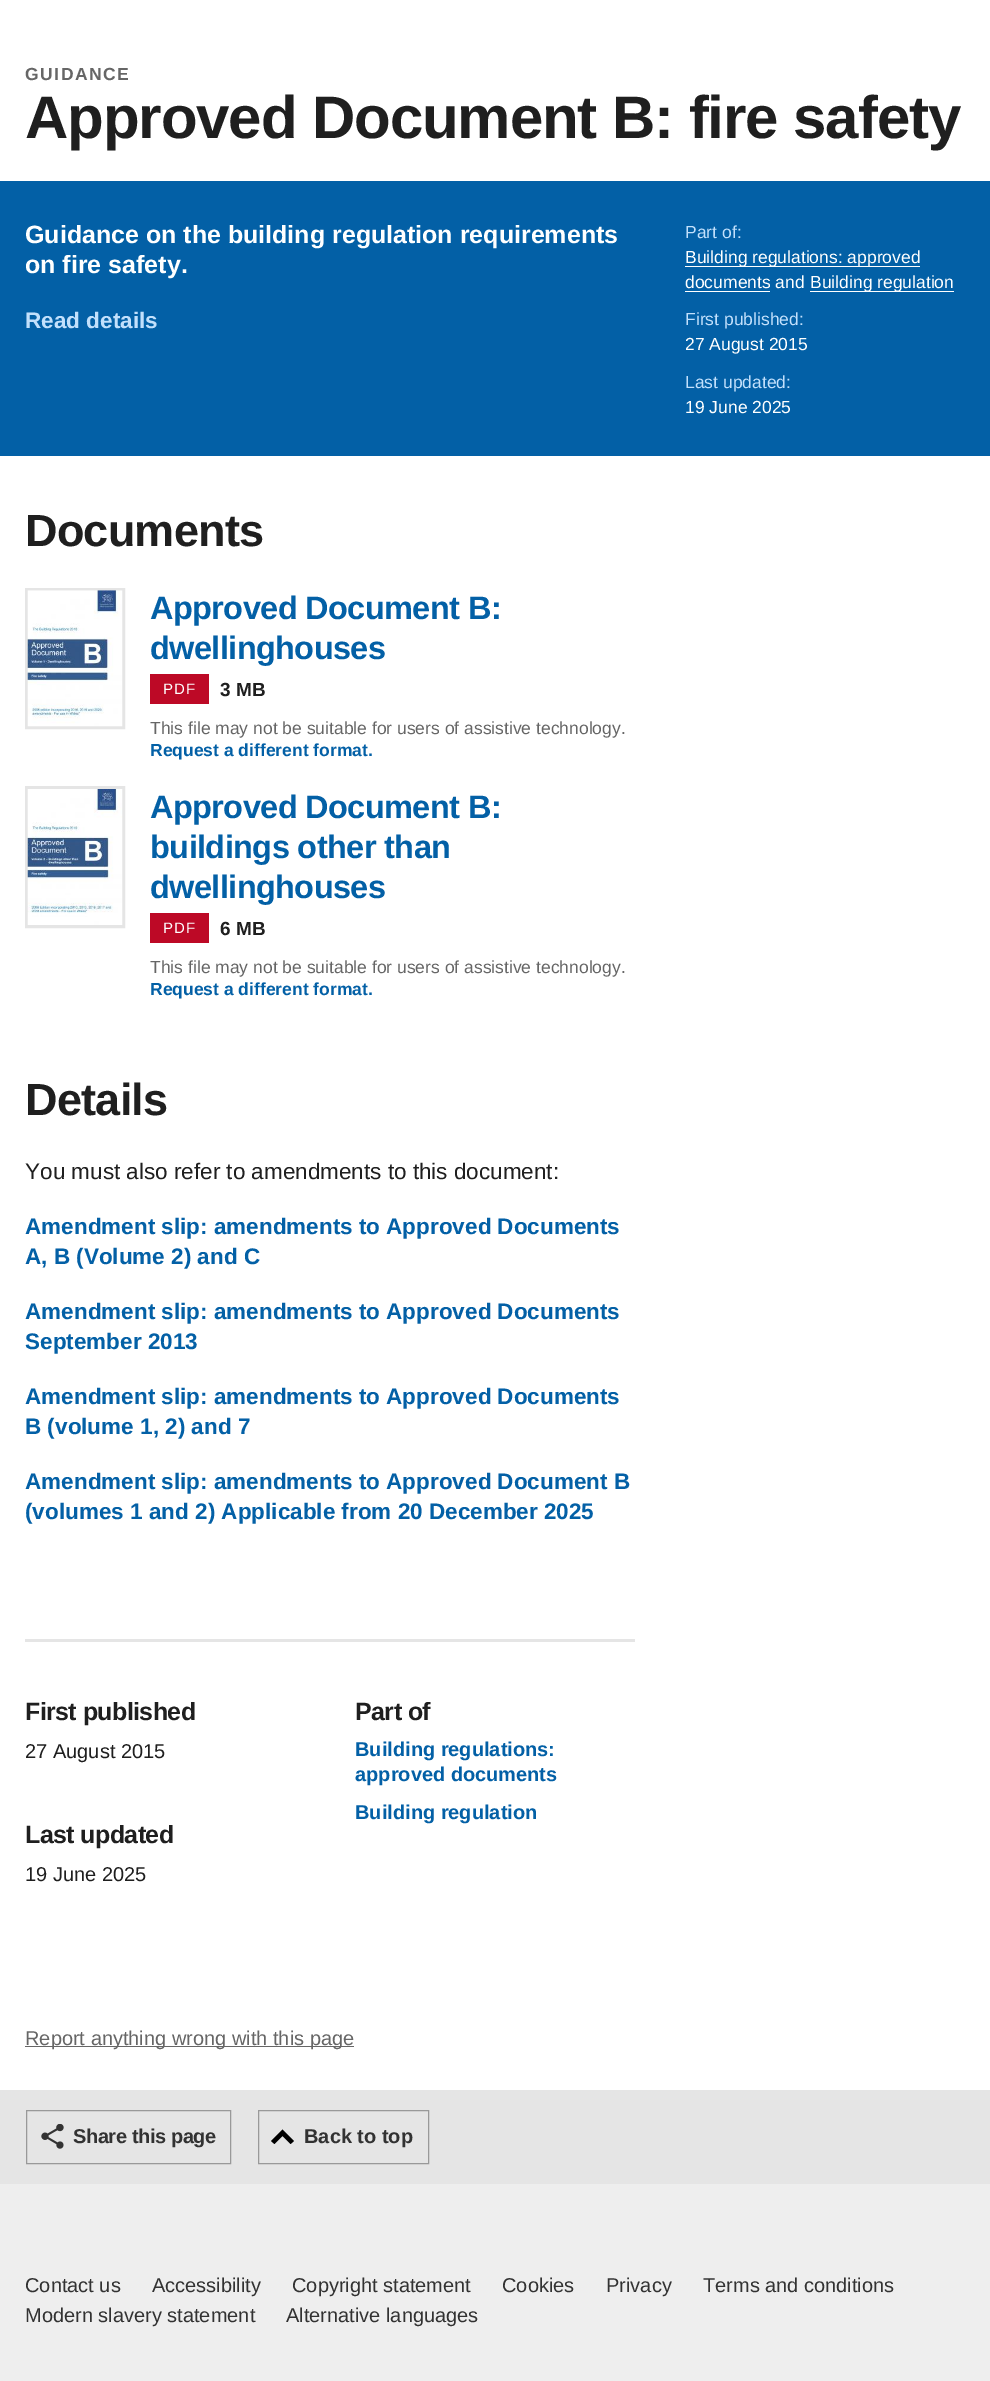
%!PS
<< /PageSize [990 2381] >> setpagedevice
/mt/moveto load def
/li/lineto load def
/cp/closepath load def
/fl/fill load def
/lw/setlinewidth load def
/co { dup -16 bitshift 255 div exch dup -8 bitshift 255 and 255 div exch 255 and 255 div setrgbcolor } def
/fn { [ exch dup neg 0 0 3 -1 roll 0 0 ] selectfont } def
/tx { co fn moveto show } def
/bx { co rectfill } def
/im { 5 dict begin { /h /w /y /x /name } { exch def } forall
  gsave x y translate w h scale
  w h 8 [w 0 0 h 0 0] name (r) file false 3 colorimage grestore end } def
0 2381 translate 1 -1 scale
4 setmiterlimit
0 0 990 2381 16#EEEEEE bx
0 0 990 2090 16#FFFFFF bx
0 181 990 275 16#0360A6 bx
685 266 235 1 16#FFFFFF bx
685 291 85 1 16#FFFFFF bx
810 291 144 1 16#FFFFFF bx
16#E5E5E5 co
3 lw
26.5 589.5 97 138 rectstroke
(media/1.raw) 27 590 96 137 im
150 674 59 30 16#BD0926 bx
16#E5E5E5 co
26.5 787.5 97 139 rectstroke
(media/2.raw) 27 789 96 136 im
150 913 59 30 16#BD0926 bx
25 1639 610 3 16#E5E5E5 bx
25 2046 329 1 16#666666 bx
0 2090 990 94 16#E5E5E5 bx
(media/3.raw) 41 2124 23 25 im
16#999999 co
1 lw
26.5 2110.5 204 53 rectstroke
16#000000 co
294 2141 mt 282.5 2129.5 li 271 2141 li 274.5 2144 li 282.5 2136 li 290.5 2144 li cp fl
16#999999 co
258.5 2110.5 170 53 rectstroke
/LiberationSans-Bold 17.5 fn
16#666666 co
25 80 mt 1.5 0 (GUIDANCE) ashow
/LiberationSans-Bold 60 fn
16#1F1F1F co
25 138 mt -1.1 0 (Approved Document B: fire safety) ashow
(Guidance on the building regulation requirements) 25 243 /LiberationSans-Bold 25 16#FFFFFF tx
(on fire safety.) 25 273 /LiberationSans-Bold 25 16#FFFFFF tx
(Read details) 25 328 /LiberationSans-Bold 22.5 16#C2E0FC tx
(Part of:) 685 238 /LiberationSans-Regular 17.5 16#C2E0FC tx
(Building regulations: approved) 685 263 /LiberationSans-Regular 17.5 16#FFFFFF tx
(documents and) 685 288 /LiberationSans-Regular 17.5 16#FFFFFF tx
(Building regulation) 810 288 /LiberationSans-Regular 17.5 16#FFFFFF tx
(First published:) 685 325 /LiberationSans-Regular 17.5 16#C2E0FC tx
(27 August 2015) 685 350 /LiberationSans-Regular 17.5 16#FFFFFF tx
(Last updated:) 685 388 /LiberationSans-Regular 17.5 16#C2E0FC tx
(19 June 2025) 685 413 /LiberationSans-Regular 17.5 16#FFFFFF tx
/LiberationSans-Bold 45 fn
16#1F1F1F co
25 546 mt -.75 0 (Documents) ashow
/LiberationSans-Bold 32.5 fn
16#0360A6 co
150 619 mt -.6 0 (Approved Document B:) ashow
150 659 mt -.6 0 (dwellinghouses) ashow
/LiberationSans-Regular 15 fn
16#FFFFFF co
163 694 mt 1 0 (PDF) ashow
(3 MB) 220 696 /LiberationSans-Bold 19 16#1F1F1F tx
(This file may not be suitable for users of assistive technology.) 150 734 /LiberationSans-Regular 17.5 16#666666 tx
(Request a different format.) 150 756 /LiberationSans-Bold 17.5 16#0360A6 tx
/LiberationSans-Bold 32.5 fn
150 818 mt -.6 0 (Approved Document B:) ashow
150 858 mt -.6 0 (buildings other than) ashow
150 898 mt -.6 0 (dwellinghouses) ashow
/LiberationSans-Regular 15 fn
16#FFFFFF co
163 933 mt 1 0 (PDF) ashow
(6 MB) 220 935 /LiberationSans-Bold 19 16#1F1F1F tx
(This file may not be suitable for users of assistive technology.) 150 973 /LiberationSans-Regular 17.5 16#666666 tx
(Request a different format.) 150 995 /LiberationSans-Bold 17.5 16#0360A6 tx
/LiberationSans-Bold 45 fn
16#1F1F1F co
25 1115 mt -.75 0 (Details) ashow
(You must also refer to amendments to this document:) 25 1179 /LiberationSans-Regular 22.5 16#1F1F1F tx
(Amendment slip: amendments to Approved Documents) 25 1234 /LiberationSans-Bold 22.5 16#0360A6 tx
(A, B \(Volume 2\) and C) 25 1264 /LiberationSans-Bold 22.5 16#0360A6 tx
(Amendment slip: amendments to Approved Documents) 25 1319 /LiberationSans-Bold 22.5 16#0360A6 tx
(September 2013) 25 1349 /LiberationSans-Bold 22.5 16#0360A6 tx
(Amendment slip: amendments to Approved Documents) 25 1404 /LiberationSans-Bold 22.5 16#0360A6 tx
(B \(volume 1, 2\) and 7) 25 1434 /LiberationSans-Bold 22.5 16#0360A6 tx
(Amendment slip: amendments to Approved Document B) 25 1489 /LiberationSans-Bold 22.5 16#0360A6 tx
(\(volumes 1 and 2\) Applicable from 20 December 2025) 25 1519 /LiberationSans-Bold 22.5 16#0360A6 tx
/LiberationSans-Bold 25 fn
16#1F1F1F co
25 1720 mt -.6 0 (First published) ashow
(27 August 2015) 25 1758 /LiberationSans-Regular 20 16#1F1F1F tx
/LiberationSans-Bold 25 fn
25 1843 mt -.6 0 (Last updated) ashow
(19 June 2025) 25 1881 /LiberationSans-Regular 20 16#1F1F1F tx
/LiberationSans-Bold 25 fn
355 1720 mt -.6 0 (Part of) ashow
(Building regulations:) 355 1756 /LiberationSans-Bold 20 16#0360A6 tx
(approved documents) 355 1781 /LiberationSans-Bold 20 16#0360A6 tx
(Building regulation) 355 1819 /LiberationSans-Bold 20 16#0360A6 tx
(Report anything wrong with this page) 25 2045 /LiberationSans-Regular 20 16#666666 tx
/LiberationSans-Bold 20 fn
16#323232 co
73 2143 mt -.4 0 (Share this page) ashow
(Back to top) 304 2143 /LiberationSans-Bold 20 16#323232 tx
(Contact us) 25 2292 /LiberationSans-Regular 20 16#323232 tx
(Accessibility) 152 2292 /LiberationSans-Regular 20 16#323232 tx
(Copyright statement) 292 2292 /LiberationSans-Regular 20 16#323232 tx
(Cookies) 502 2292 /LiberationSans-Regular 20 16#323232 tx
(Privacy) 606 2292 /LiberationSans-Regular 20 16#323232 tx
(Terms and conditions) 703 2292 /LiberationSans-Regular 20 16#323232 tx
(Modern slavery statement) 25 2322 /LiberationSans-Regular 20 16#323232 tx
(Alternative languages) 286 2322 /LiberationSans-Regular 20 16#323232 tx
showpage
